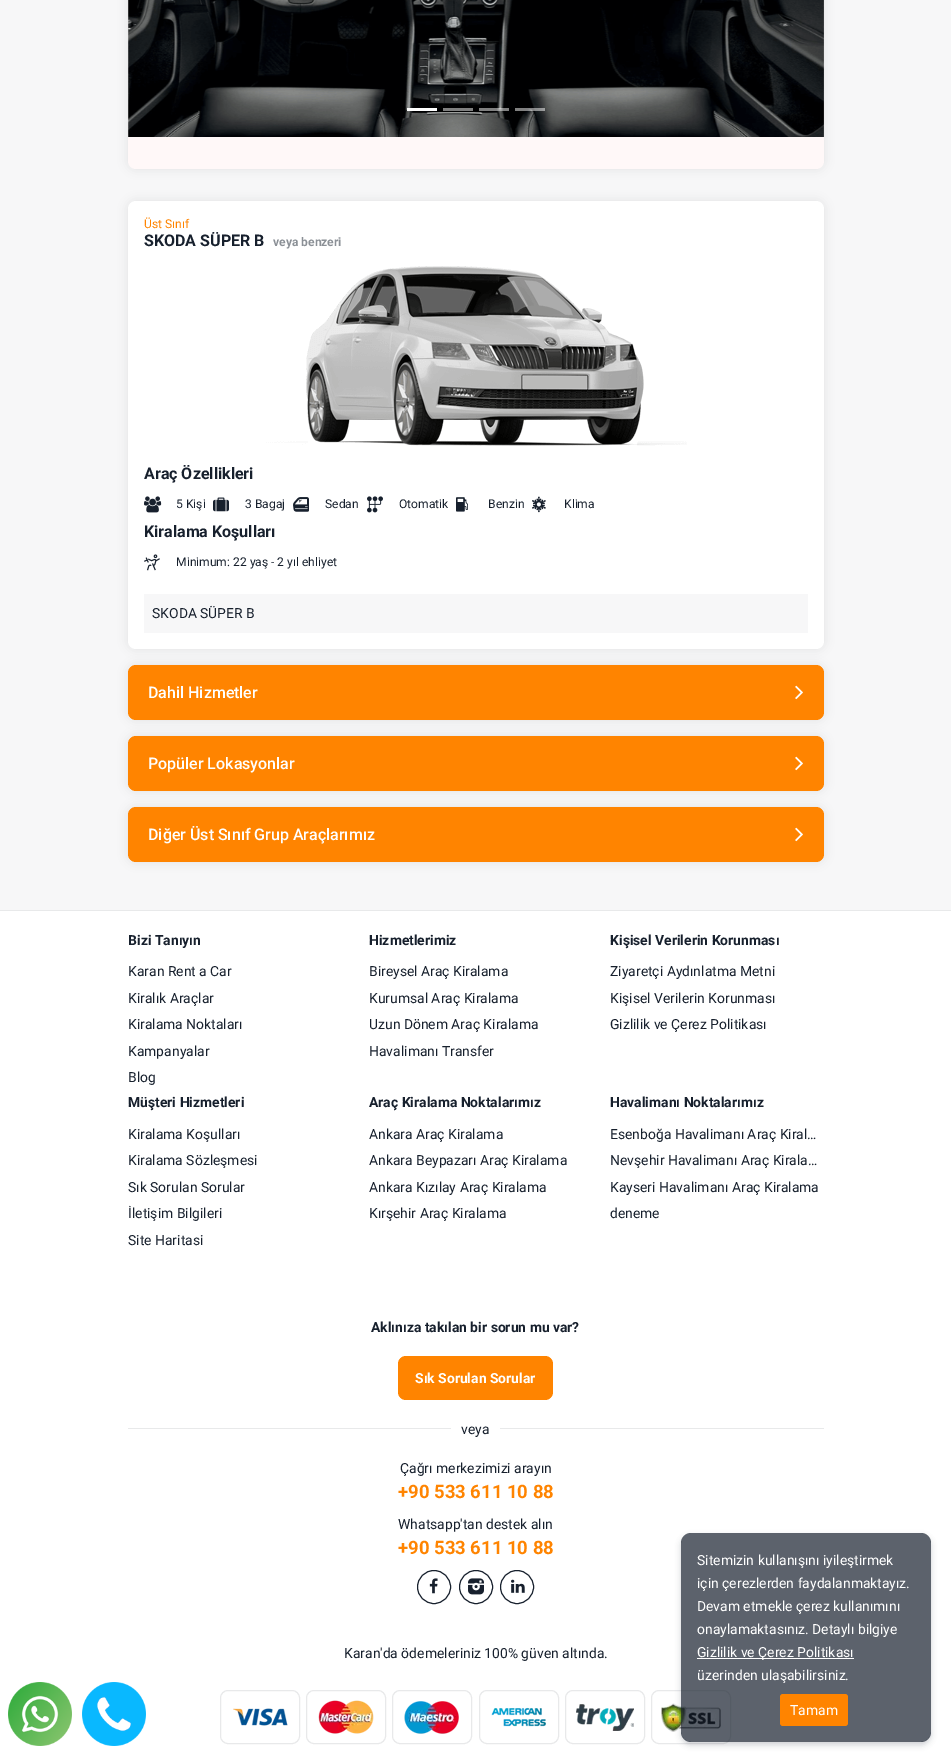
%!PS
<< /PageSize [951 1762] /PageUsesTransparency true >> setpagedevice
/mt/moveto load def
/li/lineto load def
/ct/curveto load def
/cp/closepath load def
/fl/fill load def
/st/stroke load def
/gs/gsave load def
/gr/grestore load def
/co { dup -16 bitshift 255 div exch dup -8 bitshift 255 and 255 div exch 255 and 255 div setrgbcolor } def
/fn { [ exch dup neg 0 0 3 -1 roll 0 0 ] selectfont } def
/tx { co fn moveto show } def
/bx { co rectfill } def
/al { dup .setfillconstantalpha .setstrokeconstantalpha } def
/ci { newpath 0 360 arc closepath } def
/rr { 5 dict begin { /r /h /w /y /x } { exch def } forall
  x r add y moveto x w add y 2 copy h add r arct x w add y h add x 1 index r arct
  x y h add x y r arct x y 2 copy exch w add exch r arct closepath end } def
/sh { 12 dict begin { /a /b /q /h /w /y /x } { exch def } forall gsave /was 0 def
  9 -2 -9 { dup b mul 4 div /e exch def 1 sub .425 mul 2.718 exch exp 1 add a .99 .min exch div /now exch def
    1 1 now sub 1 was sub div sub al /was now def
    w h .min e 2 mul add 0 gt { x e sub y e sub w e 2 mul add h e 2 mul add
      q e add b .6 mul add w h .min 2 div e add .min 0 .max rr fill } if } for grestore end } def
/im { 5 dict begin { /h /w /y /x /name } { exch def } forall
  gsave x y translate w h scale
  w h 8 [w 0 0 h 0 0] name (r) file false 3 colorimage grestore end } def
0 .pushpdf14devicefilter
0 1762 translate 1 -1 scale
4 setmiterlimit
0 0 951 1762 16#FFFFFF bx
0 0 951 910 16#F7F7F8 bx
16#17202D co
128 -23 696 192 8 5 .1 sh
16#FFF8F8 co
128 -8 696 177 8 rr fl
(media/1.raw) 128 0 696 137 im
407 108 30 3 16#FFFFFF bx
443 108 30 3 16#808080 bx
0.5 al
479 108 30 3 16#FFFFFF bx
515 108 30 3 16#FFFFFF bx
1 al
16#17202D co
128 201 696 448 8 5 .1 sh
16#FFFFFF co
128 201 696 448 8 rr fl
(media/2.raw) 266 266 421 180 im
(media/3.raw) 144 496 18 17 im
(media/4.raw) 213 497 16 15 im
(media/5.raw) 293 497 16 15 im
(media/6.raw) 367 496 16 17 im
(media/7.raw) 456 497 12 15 im
(media/8.raw) 532 496 14 17 im
(media/9.raw) 144 554 16 17 im
144 594 664 39 16#F7F7F8 bx
16#17202D co
128 665 696 55 8 5 .1 sh
16#FF8400 co
128 665 696 55 8 rr fl
(media/10.raw) 795 685 8 15 im
16#17202D co
128 736 696 55 8 5 .1 sh
16#FF8400 co
128 736 696 55 8 rr fl
(media/10.raw) 795 756 8 15 im
16#17202D co
128 807 696 55 8 5 .1 sh
16#FF8400 co
128 807 696 55 8 rr fl
(media/10.raw) 795 827 8 15 im
0 910 951 1 16#E8E9EA bx
16#FF8400 co
398 1356 155 44 8 rr fl
128 1428 696 1 16#E8E9EA bx
451 1428 49 1 16#FFFFFF bx
16#17202D co
434 1587 16.5 ci st
(media/11.raw) 429 1578 9 16 im
476 1587 16.5 ci st
(media/12.raw) 468 1578 16 17 im
517 1587 16.5 ci st
(media/13.raw) 511 1579 14 14 im
(media/14.raw) 233 1708 55 18 im
16#E8E9EA co
220.5 1690.5 79 53 7.5 rr st
(media/15.raw) 318 1700 56 34 im
306.5 1690.5 79 53 7.5 rr st
(media/16.raw) 404 1701 55 33 im
392.5 1690.5 79 53 7.5 rr st
(media/17.raw) 491 1707 55 20 im
479.5 1690.5 79 53 7.5 rr st
(media/18.raw) 576 1704 58 27 im
565.5 1690.5 79 53 7.5 rr st
(media/19.raw) 661 1703 60 29 im
651.5 1690.5 79 53 7.5 rr st
(media/20.raw) 8 1682 64 64 im
(media/21.raw) 82 1682 64 64 im
gs
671 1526 mt 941 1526 li 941 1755 li 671 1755 li cp 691 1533 mt 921 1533 li 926.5 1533 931 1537.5 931 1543 ct 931 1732 li 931 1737.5 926.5 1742 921 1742 ct 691 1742 li 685.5 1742 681 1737.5 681 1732 ct 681 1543 li 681 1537.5 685.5 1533 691 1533 ct cp eoclip newpath
16#17202D co
681 1536 250 209 10 3 .2 sh
gr
0.7 al
16#17202D co
681 1533 250 209 10 rr fl
1 al
697 1658 157 1 16#FFFFFF bx
16#FF8400 co
780 1694 68 32 3 rr fl
(Üst Sınıf) 144 228 /Roboto-Regular 12.1 16#FF8400 tx
(SKODA SÜPER B) 144 246 /Roboto-Bold 16 16#17202D tx
(veya benzeri) 273 246 /Roboto-Bold 12.1 16#8B9096 tx
(Araç Özellikleri) 144 479 /Roboto-Bold 16 16#17202D tx
(5 Kişi) 176 508 /Roboto-Regular 12.1 16#17202D tx
(3 Bagaj) 245 508 /Roboto-Regular 12.1 16#17202D tx
(Sedan) 325 508 /Roboto-Regular 12.1 16#17202D tx
(Otomatik) 399 508 /Roboto-Regular 12.1 16#17202D tx
(Benzin) 488 508 /Roboto-Regular 12.1 16#17202D tx
(Klima) 564 508 /Roboto-Regular 12.1 16#17202D tx
(Kiralama Koşulları) 144 537 /Roboto-Bold 16 16#17202D tx
(Minimum: 22 yaş - 2 yıl ehliyet) 176 566 /Roboto-Regular 12.1 16#17202D tx
(SKODA SÜPER B) 152 618 /Roboto-Regular 13.9 16#17202D tx
(Dahil Hizmetler) 148 698 /Roboto-Medium 16 16#FFFFFF tx
(Popüler Lokasyonlar) 148 769 /Roboto-Medium 16 16#FFFFFF tx
(Diğer Üst Sınıf Grup Araçlarımız) 148 840 /Roboto-Medium 16 16#FFFFFF tx
(Bizi Tanıyın) 128 945 /Roboto-Bold 13.9 16#17202D tx
(Karan Rent a Car) 128 976 /Roboto-Regular 13.9 16#17202D tx
(Kiralık Araçlar) 128 1003 /Roboto-Regular 13.9 16#17202D tx
(Kiralama Noktaları) 128 1029 /Roboto-Regular 13.9 16#17202D tx
(Kampanyalar) 128 1056 /Roboto-Regular 13.9 16#17202D tx
(Blog) 128 1082 /Roboto-Regular 13.9 16#17202D tx
(Hizmetlerimiz) 369 945 /Roboto-Bold 13.9 16#17202D tx
(Bireysel Araç Kiralama) 369 976 /Roboto-Regular 13.9 16#17202D tx
(Kurumsal Araç Kiralama) 369 1003 /Roboto-Regular 13.9 16#17202D tx
(Uzun Dönem Araç Kiralama) 369 1029 /Roboto-Regular 13.9 16#17202D tx
(Havalimanı Transfer) 369 1056 /Roboto-Regular 13.9 16#17202D tx
(Kişisel Verilerin Korunması) 610 945 /Roboto-Bold 13.9 16#17202D tx
(Ziyaretçi Aydınlatma Metni) 610 976 /Roboto-Regular 13.9 16#17202D tx
(Kişisel Verilerin Korunması) 610 1003 /Roboto-Regular 13.9 16#17202D tx
(Gizlilik ve Çerez Politikası) 610 1029 /Roboto-Regular 13.9 16#17202D tx
(Müşteri Hizmetleri) 128 1107 /Roboto-Bold 13.9 16#17202D tx
(Kiralama Koşulları) 128 1139 /Roboto-Regular 13.9 16#17202D tx
(Kiralama Sözleşmesi) 128 1165 /Roboto-Regular 13.9 16#17202D tx
(Sık Sorulan Sorular) 128 1192 /Roboto-Regular 13.9 16#17202D tx
(İletişim Bilgileri) 128 1218 /Roboto-Regular 13.9 16#17202D tx
(Site Haritasi) 128 1245 /Roboto-Regular 13.9 16#17202D tx
(Araç Kiralama Noktalarımız) 369 1107 /Roboto-Bold 13.9 16#17202D tx
(Ankara Araç Kiralama) 369 1139 /Roboto-Regular 13.9 16#17202D tx
(Ankara Beypazarı Araç Kiralama) 369 1165 /Roboto-Regular 13.9 16#17202D tx
(Ankara Kızılay Araç Kiralama) 369 1192 /Roboto-Regular 13.9 16#17202D tx
(Kırşehir Araç Kiralama) 369 1218 /Roboto-Regular 13.9 16#17202D tx
(Havalimanı Noktalarımız) 610 1107 /Roboto-Bold 13.9 16#17202D tx
(Esenboğa Havalimanı Araç Kiral…) 610 1139 /Roboto-Regular 13.9 16#17202D tx
(Nevşehir Havalimanı Araç Kirala…) 610 1165 /Roboto-Regular 13.9 16#17202D tx
(Kayseri Havalimanı Araç Kiralama) 610 1192 /Roboto-Regular 13.9 16#17202D tx
(deneme) 610 1218 /Roboto-Regular 13.9 16#17202D tx
(Aklınıza takılan bir sorun mu var?) 371 1332 /Roboto-Bold 13.9 16#17202D tx
(Sık Sorulan Sorular) 415 1383 /Roboto-Bold 13.9 16#FFFFFF tx
(veya) 461 1434 /Roboto-Regular 13.9 16#17202D tx
(Çağrı merkezimizi arayın) 400 1473 /Roboto-Regular 13.9 16#17202D tx
(+90 533 611 10 88) 398 1498 /Roboto-Bold 18.5 16#FF8400 tx
(Whatsapp'tan destek alın) 398 1529 /Roboto-Regular 13.9 16#17202D tx
(+90 533 611 10 88) 398 1554 /Roboto-Bold 18.5 16#FF8400 tx
(Karan'da ödemeleriniz 100% güven altında.) 344 1658 /Roboto-Regular 13.9 16#17202D tx
(Sitemizin kullanışını iyileştirmek) 697 1565 /Roboto-Regular 13.9 16#FFFFFF tx
(için çerezlerden faydalanmaktayız.) 697 1588 /Roboto-Regular 13.9 16#FFFFFF tx
(Devam etmekle çerez kullanımını) 697 1611 /Roboto-Regular 13.9 16#FFFFFF tx
(onaylamaktasınız. Detaylı bilgiye) 697 1634 /Roboto-Regular 13.9 16#FFFFFF tx
(Gizlilik ve Çerez Politikası) 697 1657 /Roboto-Regular 13.9 16#FFFFFF tx
(üzerinden ulaşabilirsiniz.) 697 1680 /Roboto-Regular 13.9 16#FFFFFF tx
(Tamam) 790 1715 /Roboto-Regular 13.9 16#FFFFFF tx
.poppdf14devicefilter showpage
